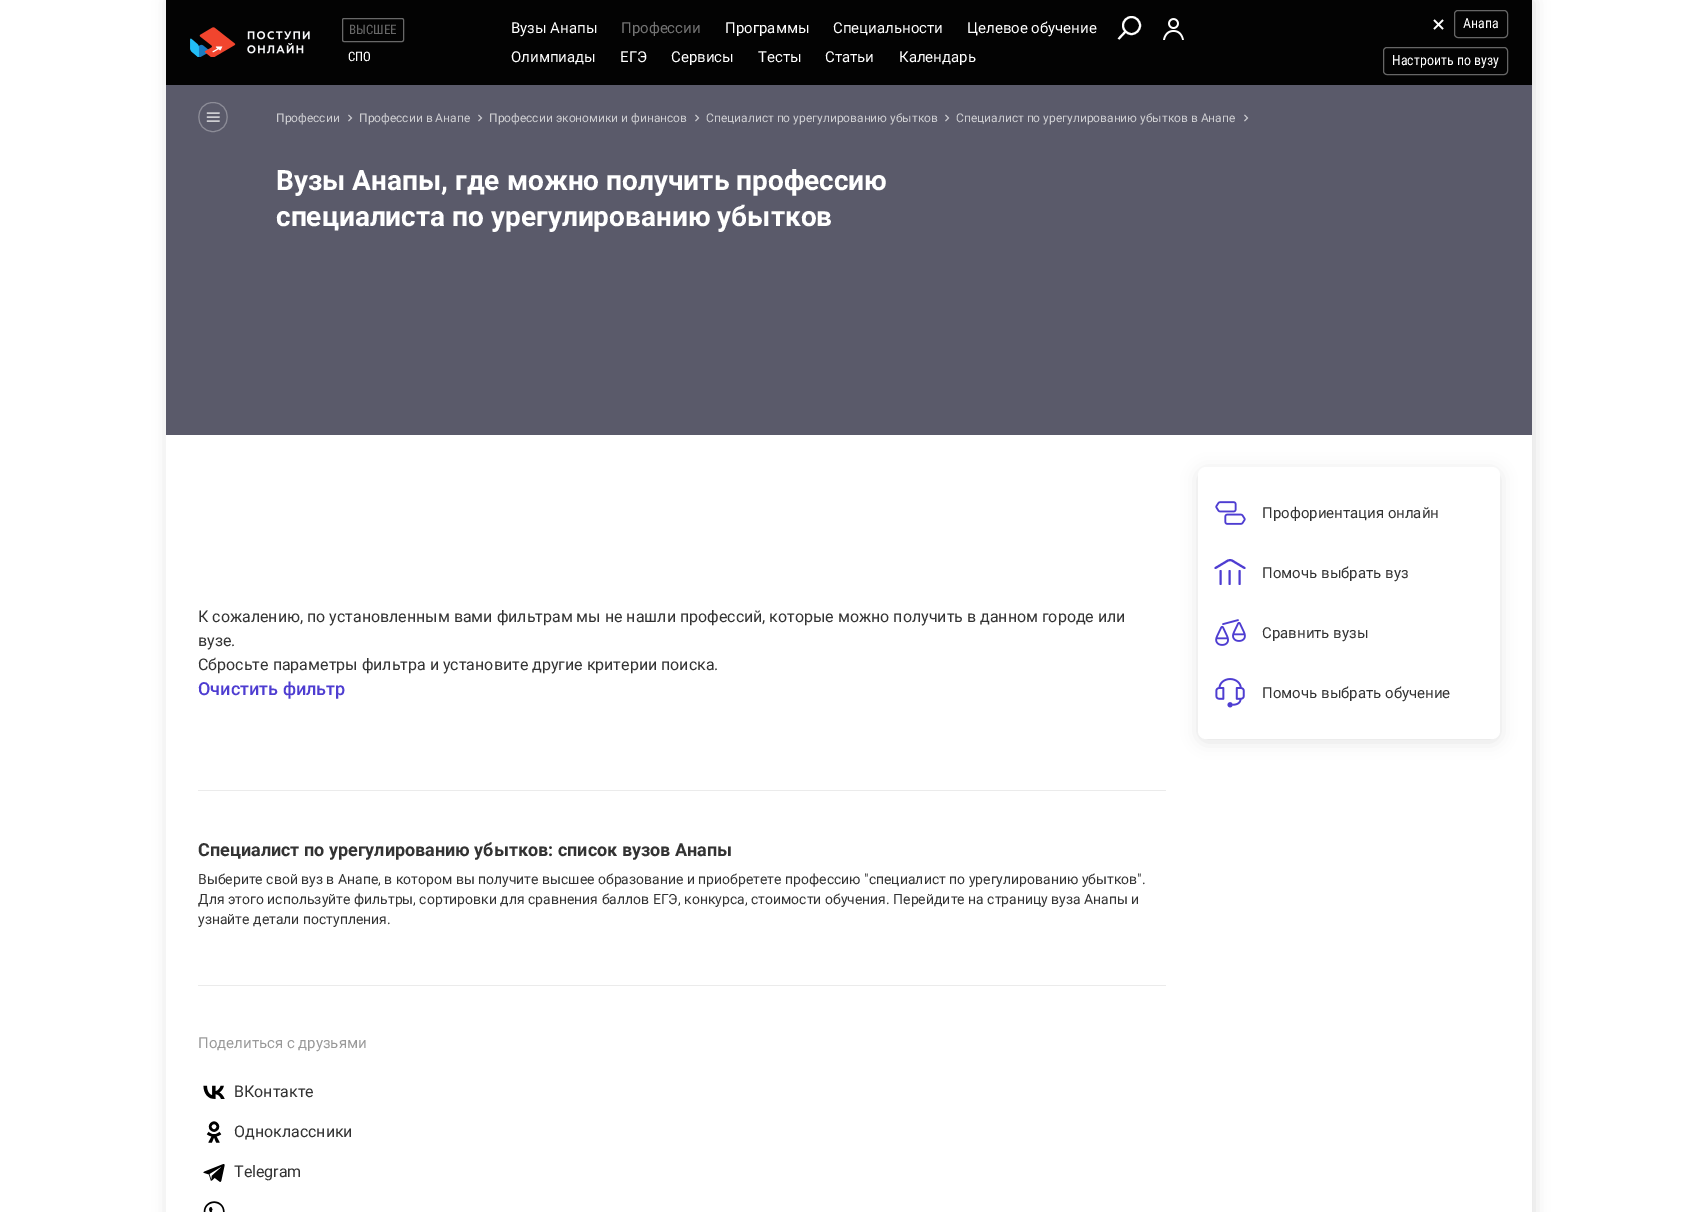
%!PS
<< /PageSize [1698 1212] /PageUsesTransparency true >> setpagedevice
/mt/moveto load def
/li/lineto load def
/ct/curveto load def
/cp/closepath load def
/fl/fill load def
/st/stroke load def
/gs/gsave load def
/gr/grestore load def
/lw/setlinewidth load def
/co { dup -16 bitshift 255 div exch dup -8 bitshift 255 and 255 div exch 255 and 255 div setrgbcolor } def
/fn { [ exch dup neg 0 0 3 -1 roll 0 0 ] selectfont } def
/tx { co fn moveto show } def
/bx { co rectfill } def
/al { dup .setfillconstantalpha .setstrokeconstantalpha } def
/ci { newpath 0 360 arc closepath } def
/rr { 5 dict begin { /r /h /w /y /x } { exch def } forall
  x r add y moveto x w add y 2 copy h add r arct x w add y h add x 1 index r arct
  x y h add x y r arct x y 2 copy exch w add exch r arct closepath end } def
/sh { 12 dict begin { /a /b /q /h /w /y /x } { exch def } forall gsave /was 0 def
  9 -2 -9 { dup b mul 4 div /e exch def 1 sub .425 mul 2.718 exch exp 1 add a .99 .min exch div /now exch def
    1 1 now sub 1 was sub div sub al /was now def
    w h .min e 2 mul add 0 gt { x e sub y e sub w e 2 mul add h e 2 mul add
      q e add b .6 mul add w h .min 2 div e add .min 0 .max rr fill } if } for grestore end } def
/im { 5 dict begin { /h /w /y /x /name } { exch def } forall
  gsave x y translate w h scale
  w h 8 [w 0 0 h 0 0] name (r) file false 3 colorimage grestore end } def
0 .pushpdf14devicefilter
0 1212 translate 1 -1 scale
4 setmiterlimit
0 0 1698 1212 16#FFFFFF bx
gs
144 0 mt 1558 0 li 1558 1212 li 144 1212 li cp 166 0 mt 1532 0 li 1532 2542 li 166 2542 li cp eoclip newpath
16#DDDDDD co
168 1 1366 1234 0 7.5 1 sh
gr
166 0 1366 85 16#030303 bx
(media/1.raw) 190 27 120 30 im
16#686868 co
342.5 18.5 61 23 1.5 rr st
16#FFFFFF co
2 lw
1131.5 25.5 8.5 ci st
1118.5 39 mt 1126 31 li st
(media/2.raw) 1163 18 21 22 im
(media/3.raw) 1433 19 11 11 im
16#666666 co
1 lw
1454.5 10.5 53 27 3.5 rr st
1383.5 47.5 124 27 3.5 rr st
166 85 1366 350 16#5A5A6A bx
16#8C8C97 co
213 102.5 mt 194 102.5 194 131.5 213 131.5 ct 232 131.5 232 102.5 213 102.5 ct cp st
16#CECED2 co
1.5 lw
1 setlinecap
207.5 113 mt 219 113 li 207.5 117 mt 219 117 li 207.5 121 mt 219 121 li st
16#CDCDD2 co
1 lw
0 setlinecap
348.5 121 mt 351.5 118 li 348.5 115 li st
478.5 121 mt 481.5 118 li 478.5 115 li st
695.5 121 mt 698.5 118 li 695.5 115 li st
945.5 121 mt 948.5 118 li 945.5 115 li st
1244.5 121 mt 1247.5 118 li 1244.5 115 li st
198 790 968 1 16#EBEBEB bx
198 985 968 1 16#EBEBEB bx
(media/4.raw) 203 1085 22 14 im
(media/5.raw) 206 1121 16 22 im
(media/6.raw) 203 1164 22 18 im
(media/7.raw) 203 1201 22 11 im
16#727272 co
1198 470 302 272 8 8 .2 sh
16#FFFFFF co
1198 467 302 272 8 rr fl
(media/8.raw) 1215 501 31 24 im
16#4E3DD1 co
2 lw
1 setlinecap
1 setlinejoin
1215.5 568 mt 1228 560.5 li 1229.5 560 1231 560 1232 560.5 ct 1244.5 568 li 1220.5 571 mt 1220.5 584 li 1229.5 571 mt 1229.5 584 li 1239.5 571 mt 1239.5 584 li st
(media/9.raw) 1215 619 31 27 im
(media/10.raw) 1215 678 30 30 im
(ВЫСШЕЕ) 349 34 /RobotoCondensed-Regular 13 16#686868 tx
(СПО) 348 61 /RobotoCondensed-Regular 13 16#FFFFFF tx
(Вузы Анапы) 511 33 /Roboto-Regular 15 16#FFFFFF tx
(Профессии) 621 33 /Roboto-Regular 15 16#747474 tx
(Программы) 725 33 /Roboto-Regular 15 16#FFFFFF tx
(Специальности) 833 33 /Roboto-Regular 15 16#FFFFFF tx
(Целевое обучение) 967 33 /Roboto-Regular 15 16#FFFFFF tx
(Олимпиады) 511 62 /Roboto-Regular 15 16#FFFFFF tx
(ЕГЭ) 620 62 /Roboto-Regular 15 16#FFFFFF tx
(Сервисы) 671 62 /Roboto-Regular 15 16#FFFFFF tx
(Тесты) 758 62 /Roboto-Regular 15 16#FFFFFF tx
(Статьи) 825 62 /Roboto-Regular 15 16#FFFFFF tx
(Календарь) 899 62 /Roboto-Regular 15 16#FFFFFF tx
(Анапа) 1463 28 /RobotoCondensed-Regular 14 16#FFFFFF tx
(Настроить по вузу) 1392 65 /RobotoCondensed-Regular 14 16#FFFFFF tx
(Профессии) 276 122 /Roboto-Regular 12 16#CECED2 tx
(Профессии в Анапе) 359 122 /Roboto-Regular 12 16#CECED2 tx
(Профессии экономики и финансов) 489 122 /Roboto-Regular 12 16#CECED2 tx
(Специалист по урегулированию убытков) 706 122 /Roboto-Regular 12 16#CECED2 tx
(Специалист по урегулированию убытков в Анапе) 956 122 /Roboto-Regular 12 16#CECED2 tx
(Вузы Анапы, где можно получить профессию) 276 190 /Roboto-Bold 28 16#FFFFFF tx
(специалиста по урегулированию убытков) 276 226 /Roboto-Bold 28 16#FFFFFF tx
(К сожалению, по установленным вами фильтрам мы не нашли профессий, которые можно получить в данном городе или) 198 622 /Roboto-Regular 16 16#333333 tx
(вузе.) 198 646 /Roboto-Regular 16 16#333333 tx
(Сбросьте параметры фильтра и установите другие критерии поиска.) 198 670 /Roboto-Regular 16 16#333333 tx
(Очистить фильтр) 198 695 /Roboto-Medium 18 16#4E3DD1 tx
(Специалист по урегулированию убытков: список вузов Анапы) 198 856 /Roboto-Bold 18 16#333333 tx
(Выберите свой вуз в Анапе, в котором вы получите высшее образование и приобретете профессию "специалист по урегулированию убытков".) 198 884 /Roboto-Regular 14 16#333333 tx
(Для этого используйте фильтры, сортировки для сравнения баллов ЕГЭ, конкурса, стоимости обучения. Перейдите на страницу вуза Анапы и) 198 904 /Roboto-Regular 14 16#333333 tx
(узнайте детали поступления.) 198 924 /Roboto-Regular 14 16#333333 tx
(Поделиться с друзьями) 198 1048 /Roboto-Regular 15 16#999999 tx
(ВКонтакте) 234 1097 /Roboto-Regular 16 16#333333 tx
(Одноклассники) 234 1137 /Roboto-Regular 16 16#333333 tx
(Telegram) 234 1177 /Roboto-Regular 16 16#333333 tx
(Профориентация онлайн) 1262 518 /Roboto-Regular 15 16#333333 tx
(Помочь выбрать вуз) 1262 578 /Roboto-Regular 15 16#333333 tx
(Сравнить вузы) 1262 638 /Roboto-Regular 15 16#333333 tx
(Помочь выбрать обучение) 1262 698 /Roboto-Regular 15 16#333333 tx
.poppdf14devicefilter showpage
